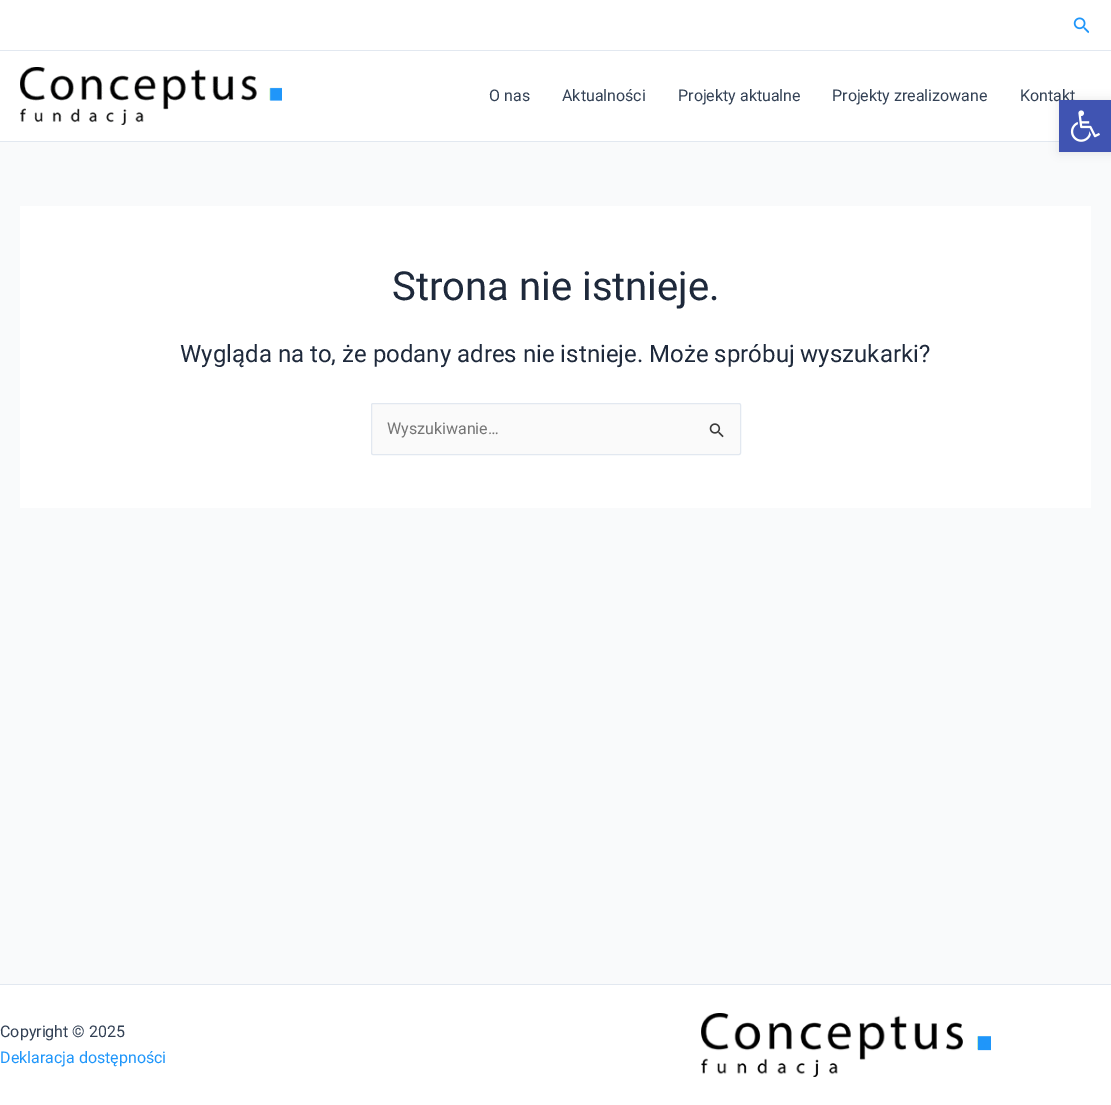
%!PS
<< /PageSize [1111 1105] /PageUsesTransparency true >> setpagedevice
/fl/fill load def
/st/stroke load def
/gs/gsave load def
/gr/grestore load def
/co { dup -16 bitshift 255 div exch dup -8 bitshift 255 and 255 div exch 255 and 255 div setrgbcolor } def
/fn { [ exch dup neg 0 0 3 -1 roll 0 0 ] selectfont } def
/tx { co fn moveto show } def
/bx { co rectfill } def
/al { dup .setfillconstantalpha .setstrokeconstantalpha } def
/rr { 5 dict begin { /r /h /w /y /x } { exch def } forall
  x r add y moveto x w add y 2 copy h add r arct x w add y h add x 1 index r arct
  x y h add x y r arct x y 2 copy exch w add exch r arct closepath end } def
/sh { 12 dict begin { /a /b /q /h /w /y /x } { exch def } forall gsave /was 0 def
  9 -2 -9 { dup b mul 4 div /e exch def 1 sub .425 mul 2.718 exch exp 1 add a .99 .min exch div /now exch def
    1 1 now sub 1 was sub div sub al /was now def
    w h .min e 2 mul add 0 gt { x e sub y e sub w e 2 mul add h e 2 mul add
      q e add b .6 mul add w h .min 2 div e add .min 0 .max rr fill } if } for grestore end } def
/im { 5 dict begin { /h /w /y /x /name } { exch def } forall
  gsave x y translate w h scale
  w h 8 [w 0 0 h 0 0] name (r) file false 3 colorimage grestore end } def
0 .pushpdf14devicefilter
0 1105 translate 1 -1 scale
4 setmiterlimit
0 0 1111 1105 16#F9FAFB bx
0 0 1111 50 16#FFFFFF bx
0 50 1111 1 16#E2E8F0 bx
(media/1.raw) 1073 17 16 17 im
0 51 1111 90 16#FFFFFF bx
0 141 1059 1 16#E2E8F0 bx
(media/2.raw) 20 67 262 58 im
20 206 1071 302 16#FFFFFF bx
16#FAFAFA co
371.5 403.5 369 51 1.5 rr gs fl gr
16#E2E8F0 co
st
(media/3.raw) 709 423 15 15 im
0 985 1111 120 16#FFFFFF bx
0 984 1111 1 16#E2E8F0 bx
(media/4.raw) 701 1013 290 64 im
16#000000 co
1059 100 52 52 0 5 .1 sh
(O nas) 489 101 /Roboto-Regular 16 16#334155 tx
(Aktualności) 562 101 /Roboto-Regular 16 16#334155 tx
(Projekty aktualne) 678 101 /Roboto-Regular 16 16#334155 tx
(Projekty zrealizowane) 832 101 /Roboto-Regular 16 16#334155 tx
(Kontakt) 1020 101 /Roboto-Regular 16 16#334155 tx
(Strona nie istnieje.) 392 300 /Roboto-Regular 40 16#1E293B tx
(Wygląda na to, że podany adres nie istnieje. Może spróbuj wyszukarki?) 180 362 /Roboto-Regular 24 16#1E293B tx
(Wyszukiwanie…) 387 434 /Roboto-Regular 16 16#757575 tx
(Copyright © 2025) 0 1037 /Roboto-Regular 16 16#334155 tx
(Deklaracja dostępności) 0 1063 /Roboto-Regular 16 16#1F96FA tx
1059 100 52 52 16#4054B2 bx
(media/5.raw) 1070 110 30 32 im
.poppdf14devicefilter showpage
